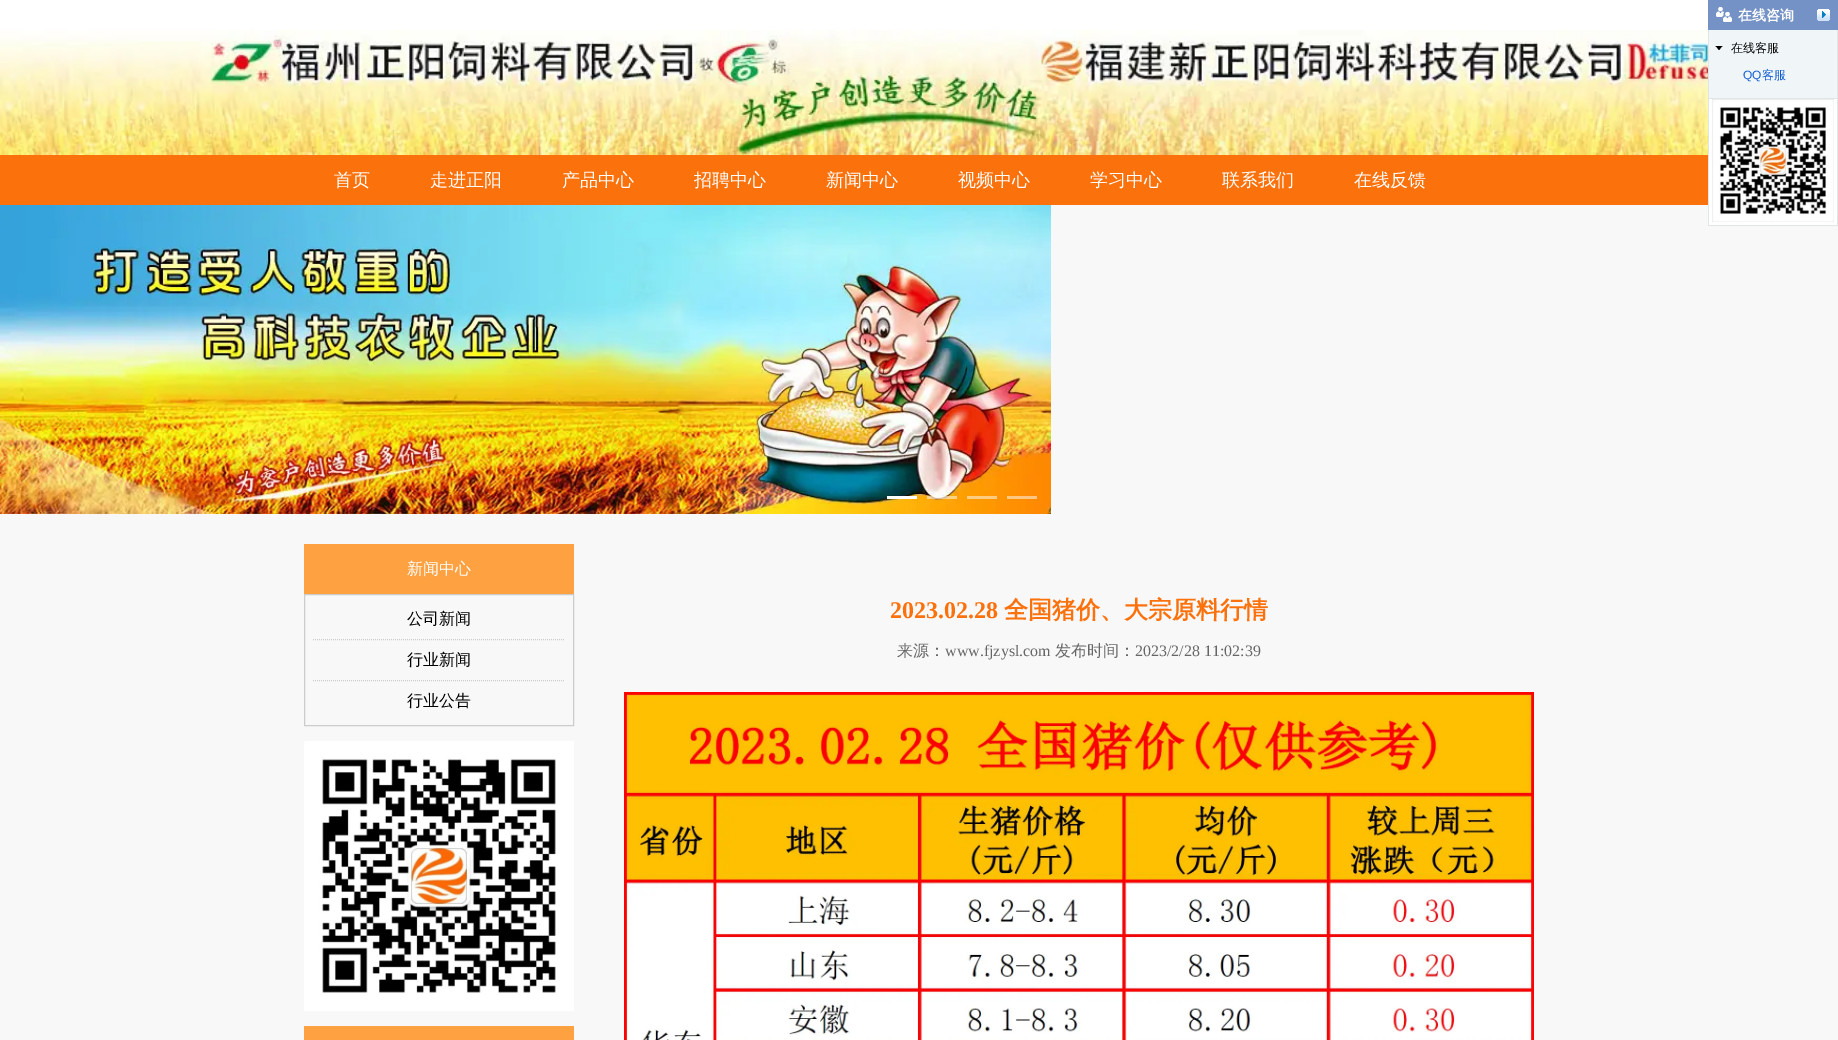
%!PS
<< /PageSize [1838 1040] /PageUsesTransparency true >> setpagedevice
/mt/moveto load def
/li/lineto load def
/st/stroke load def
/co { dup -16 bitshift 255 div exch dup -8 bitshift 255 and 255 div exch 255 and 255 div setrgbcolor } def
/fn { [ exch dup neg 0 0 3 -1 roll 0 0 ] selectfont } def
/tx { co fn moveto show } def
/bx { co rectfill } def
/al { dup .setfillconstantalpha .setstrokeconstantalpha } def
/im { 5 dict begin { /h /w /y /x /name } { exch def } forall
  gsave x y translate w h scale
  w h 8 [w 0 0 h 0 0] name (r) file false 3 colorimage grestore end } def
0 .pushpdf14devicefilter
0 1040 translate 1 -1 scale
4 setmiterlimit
0 0 1838 1040 16#FFFFFF bx
1708 0 130 30 16#7492C5 bx
(media/1.raw) 1716 7 16 15 im
(media/2.raw) 1817 9 13 12 im
1709 30 128 68 16#F0F5F8 bx
0 205 1838 835 16#F8F8F8 bx
1837 30 1 196 16#E2E5E6 bx
1708 98 130 1 16#E2E5E6 bx
1708 30 1 69 16#E2E5E6 bx
(media/3.raw) 1715 46 8 4 im
1709 205 128 20 16#FFFFFF bx
1708 225 130 1 16#E2E5E6 bx
1708 99 1 127 16#E2E5E6 bx
(media/4.raw) 1712 99 122 123 im
(media/5.raw) 0 30 1708 125 im
0 155 1708 50 16#FB710C bx
(media/6.raw) 0 205 1051 309 im
887 496 30 3 16#FFFFFF bx
0.5 al
927 496 30 3 16#FFFFFF bx
967 496 30 3 16#FFFFFF bx
1007 496 30 3 16#FFFFFF bx
1 al
304 544 270 50 16#FEA141 bx
16#CCCCCC co
304.5 594.5 269 131 rectstroke
[1 1] 0 setdash
313 639.5 mt 565 639.5 li st
313 680.5 mt 565 680.5 li st
(media/7.raw) 304 741 270 270 im
304 1026 270 14 16#FEA141 bx
(media/8.raw) 624 692 910 348 im
(在线咨询) 1738 20 /WenQuanYiZenHei-Bold 14 16#FFFFFF tx
(在线客服) 1731 52 /WenQuanYiZenHei-Medium 12 16#000000 tx
(QQ) 1743 79 /LiberationSans-Regular 12 16#0F5DD3 tx
(客服) 1762 79 /WenQuanYiZenHei-Medium 12 16#0F5DD3 tx
(首页) 334 186 /WenQuanYiZenHei-Medium 18 16#FFFFFF tx
(走进正阳) 430 186 /WenQuanYiZenHei-Medium 18 16#FFFFFF tx
(产品中心) 562 186 /WenQuanYiZenHei-Medium 18 16#FFFFFF tx
(招聘中心) 694 186 /WenQuanYiZenHei-Medium 18 16#FFFFFF tx
(新闻中心) 826 186 /WenQuanYiZenHei-Medium 18 16#FFFFFF tx
(视频中心) 958 186 /WenQuanYiZenHei-Medium 18 16#FFFFFF tx
(学习中心) 1090 186 /WenQuanYiZenHei-Medium 18 16#FFFFFF tx
(联系我们) 1222 186 /WenQuanYiZenHei-Medium 18 16#FFFFFF tx
(在线反馈) 1354 186 /WenQuanYiZenHei-Medium 18 16#FFFFFF tx
(新闻中心) 407 574 /WenQuanYiZenHei-Medium 16 16#FFFFFF tx
(公司新闻) 407 624 /WenQuanYiZenHei-Medium 16 16#000000 tx
(行业新闻) 407 665 /WenQuanYiZenHei-Medium 16 16#000000 tx
(行业公告) 407 706 /WenQuanYiZenHei-Medium 16 16#000000 tx
(2023.02.28) 890 618 /LiberationSerif-Bold 24 16#FB710C tx
(全国猪价、大宗原料行情) 1004 618 /WenQuanYiZenHei-Bold 24 16#FB710C tx
(来源：) 897 656 /WenQuanYiZenHei-Medium 16 16#666666 tx
(www.fjzysl.com) 945 656 /LiberationSerif-Regular 16 16#666666 tx
(发布时间：) 1055 656 /WenQuanYiZenHei-Medium 16 16#666666 tx
(2023/2/28 11:02:39) 1135 656 /LiberationSerif-Regular 16 16#666666 tx
.poppdf14devicefilter showpage
